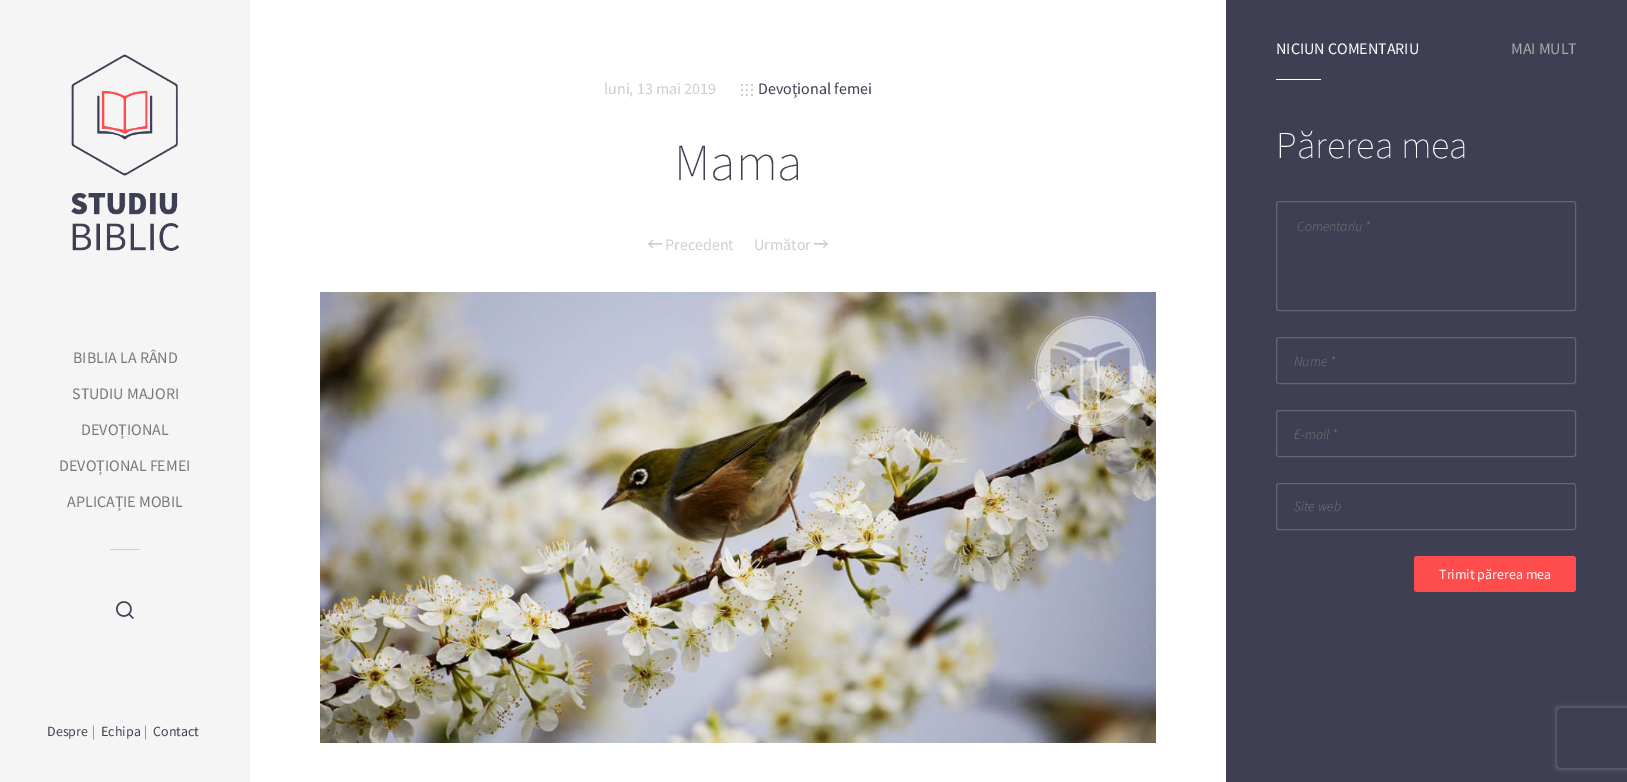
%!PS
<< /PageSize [1627 782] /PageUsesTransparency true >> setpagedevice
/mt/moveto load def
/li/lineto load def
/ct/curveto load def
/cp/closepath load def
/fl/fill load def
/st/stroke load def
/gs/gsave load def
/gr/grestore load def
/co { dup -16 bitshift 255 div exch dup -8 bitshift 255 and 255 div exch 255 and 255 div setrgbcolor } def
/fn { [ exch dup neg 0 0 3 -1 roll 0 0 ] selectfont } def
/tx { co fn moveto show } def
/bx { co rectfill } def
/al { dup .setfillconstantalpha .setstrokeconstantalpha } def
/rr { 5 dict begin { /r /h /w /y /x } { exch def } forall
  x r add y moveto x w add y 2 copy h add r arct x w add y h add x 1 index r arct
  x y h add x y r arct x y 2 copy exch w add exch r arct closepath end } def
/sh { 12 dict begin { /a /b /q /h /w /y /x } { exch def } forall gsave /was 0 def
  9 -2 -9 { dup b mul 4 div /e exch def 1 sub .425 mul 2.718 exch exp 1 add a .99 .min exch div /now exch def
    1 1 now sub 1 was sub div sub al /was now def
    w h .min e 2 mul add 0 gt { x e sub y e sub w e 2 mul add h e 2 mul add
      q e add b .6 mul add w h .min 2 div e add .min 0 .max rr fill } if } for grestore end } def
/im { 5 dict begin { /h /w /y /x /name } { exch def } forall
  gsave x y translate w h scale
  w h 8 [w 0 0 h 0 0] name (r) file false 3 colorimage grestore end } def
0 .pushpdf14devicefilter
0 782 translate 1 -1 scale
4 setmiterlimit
0 0 1627 782 16#FFFFFF bx
0 0 250 782 16#F5F5F5 bx
(media/1.raw) 71 54 108 197 im
110 549 30 1 16#D1D1D5 bx
(media/2.raw) 116 601 18 18 im
(media/3.raw) 741 84 12 12 im
(media/4.raw) 648 239 14 10 im
(media/5.raw) 814 239 14 10 im
(media/6.raw) 320 292 836 451 im
1226 0 401 782 16#3F3F53 bx
1276 79 45 1 16#FFFFFF bx
16#656575 co
1276.5 201.5 299 109 2.5 rr st
1276.5 337.5 299 46 2.5 rr st
1276.5 410.5 299 46 2.5 rr st
1276.5 483.5 299 46 2.5 rr st
16#FF4D4D co
1414 556 162 36 3 rr fl
gs
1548 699 mt 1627 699 li 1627 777 li 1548 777 li cp 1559 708 mt 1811 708 li 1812 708 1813 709 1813 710 ct 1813 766 li 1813 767 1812 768 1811 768 ct 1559 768 li 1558 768 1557 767 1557 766 ct 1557 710 li 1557 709 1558 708 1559 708 ct cp eoclip newpath
16#808080 co
1557 708 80 60 2 2.5 1 sh
gr
(BIBLIA LA RÂND) 73 363 /SourceSansPro-Regular 16 16#777777 tx
(STUDIU MAJORI) 72 399 /SourceSansPro-Regular 16 16#777777 tx
(DEVOȚIONAL) 81 435 /SourceSansPro-Regular 16 16#777777 tx
(DEVOȚIONAL FEMEI) 59 471 /SourceSansPro-Regular 16 16#777777 tx
(APLICAȚIE MOBIL) 67 507 /SourceSansPro-Regular 16 16#777777 tx
(Despre) 47 736 /SourceSansPro-Regular 14 16#3F3F53 tx
(|) 92 736 /SourceSansPro-Regular 14 16#777777 tx
(Echipa) 101 736 /SourceSansPro-Regular 14 16#3F3F53 tx
(|) 144 736 /SourceSansPro-Regular 14 16#777777 tx
(Contact) 153 736 /SourceSansPro-Regular 14 16#3F3F53 tx
(luni, 13 mai 2019) 604 94 /SourceSansPro-Regular 16 16#CECECE tx
(Devoțional femei) 758 94 /SourceSansPro-Regular 16 16#3F3F53 tx
(Mama) 674 180 /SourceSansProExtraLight-ExtraLight 52 16#3F3F53 tx
(Precedent) 665 250 /SourceSansPro-Regular 16 16#CECECE tx
(Următor) 754 250 /SourceSansPro-Regular 16 16#CECECE tx
(NICIUN COMENTARIU) 1276 54 /SourceSansPro-Regular 16 16#FFFFFF tx
(MAI MULT) 1511 54 /SourceSansPro-Regular 16 16#AAAAAA tx
(Părerea mea) 1276 158 /SourceSansProExtraLight-ExtraLight 38 16#FFFFFF tx
(Comentariu *) 1297 231 /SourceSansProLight-LightItalic 14 16#777777 tx
(Nume *) 1294 366 /SourceSansProLight-LightItalic 14 16#777777 tx
(E-mail *) 1294 439 /SourceSansProLight-LightItalic 14 16#777777 tx
(Site web) 1294 511 /SourceSansProLight-LightItalic 14 16#777777 tx
(Trimit părerea mea) 1439 579 /SourceSansPro-Regular 14 16#FFFFFF tx
.poppdf14devicefilter showpage
